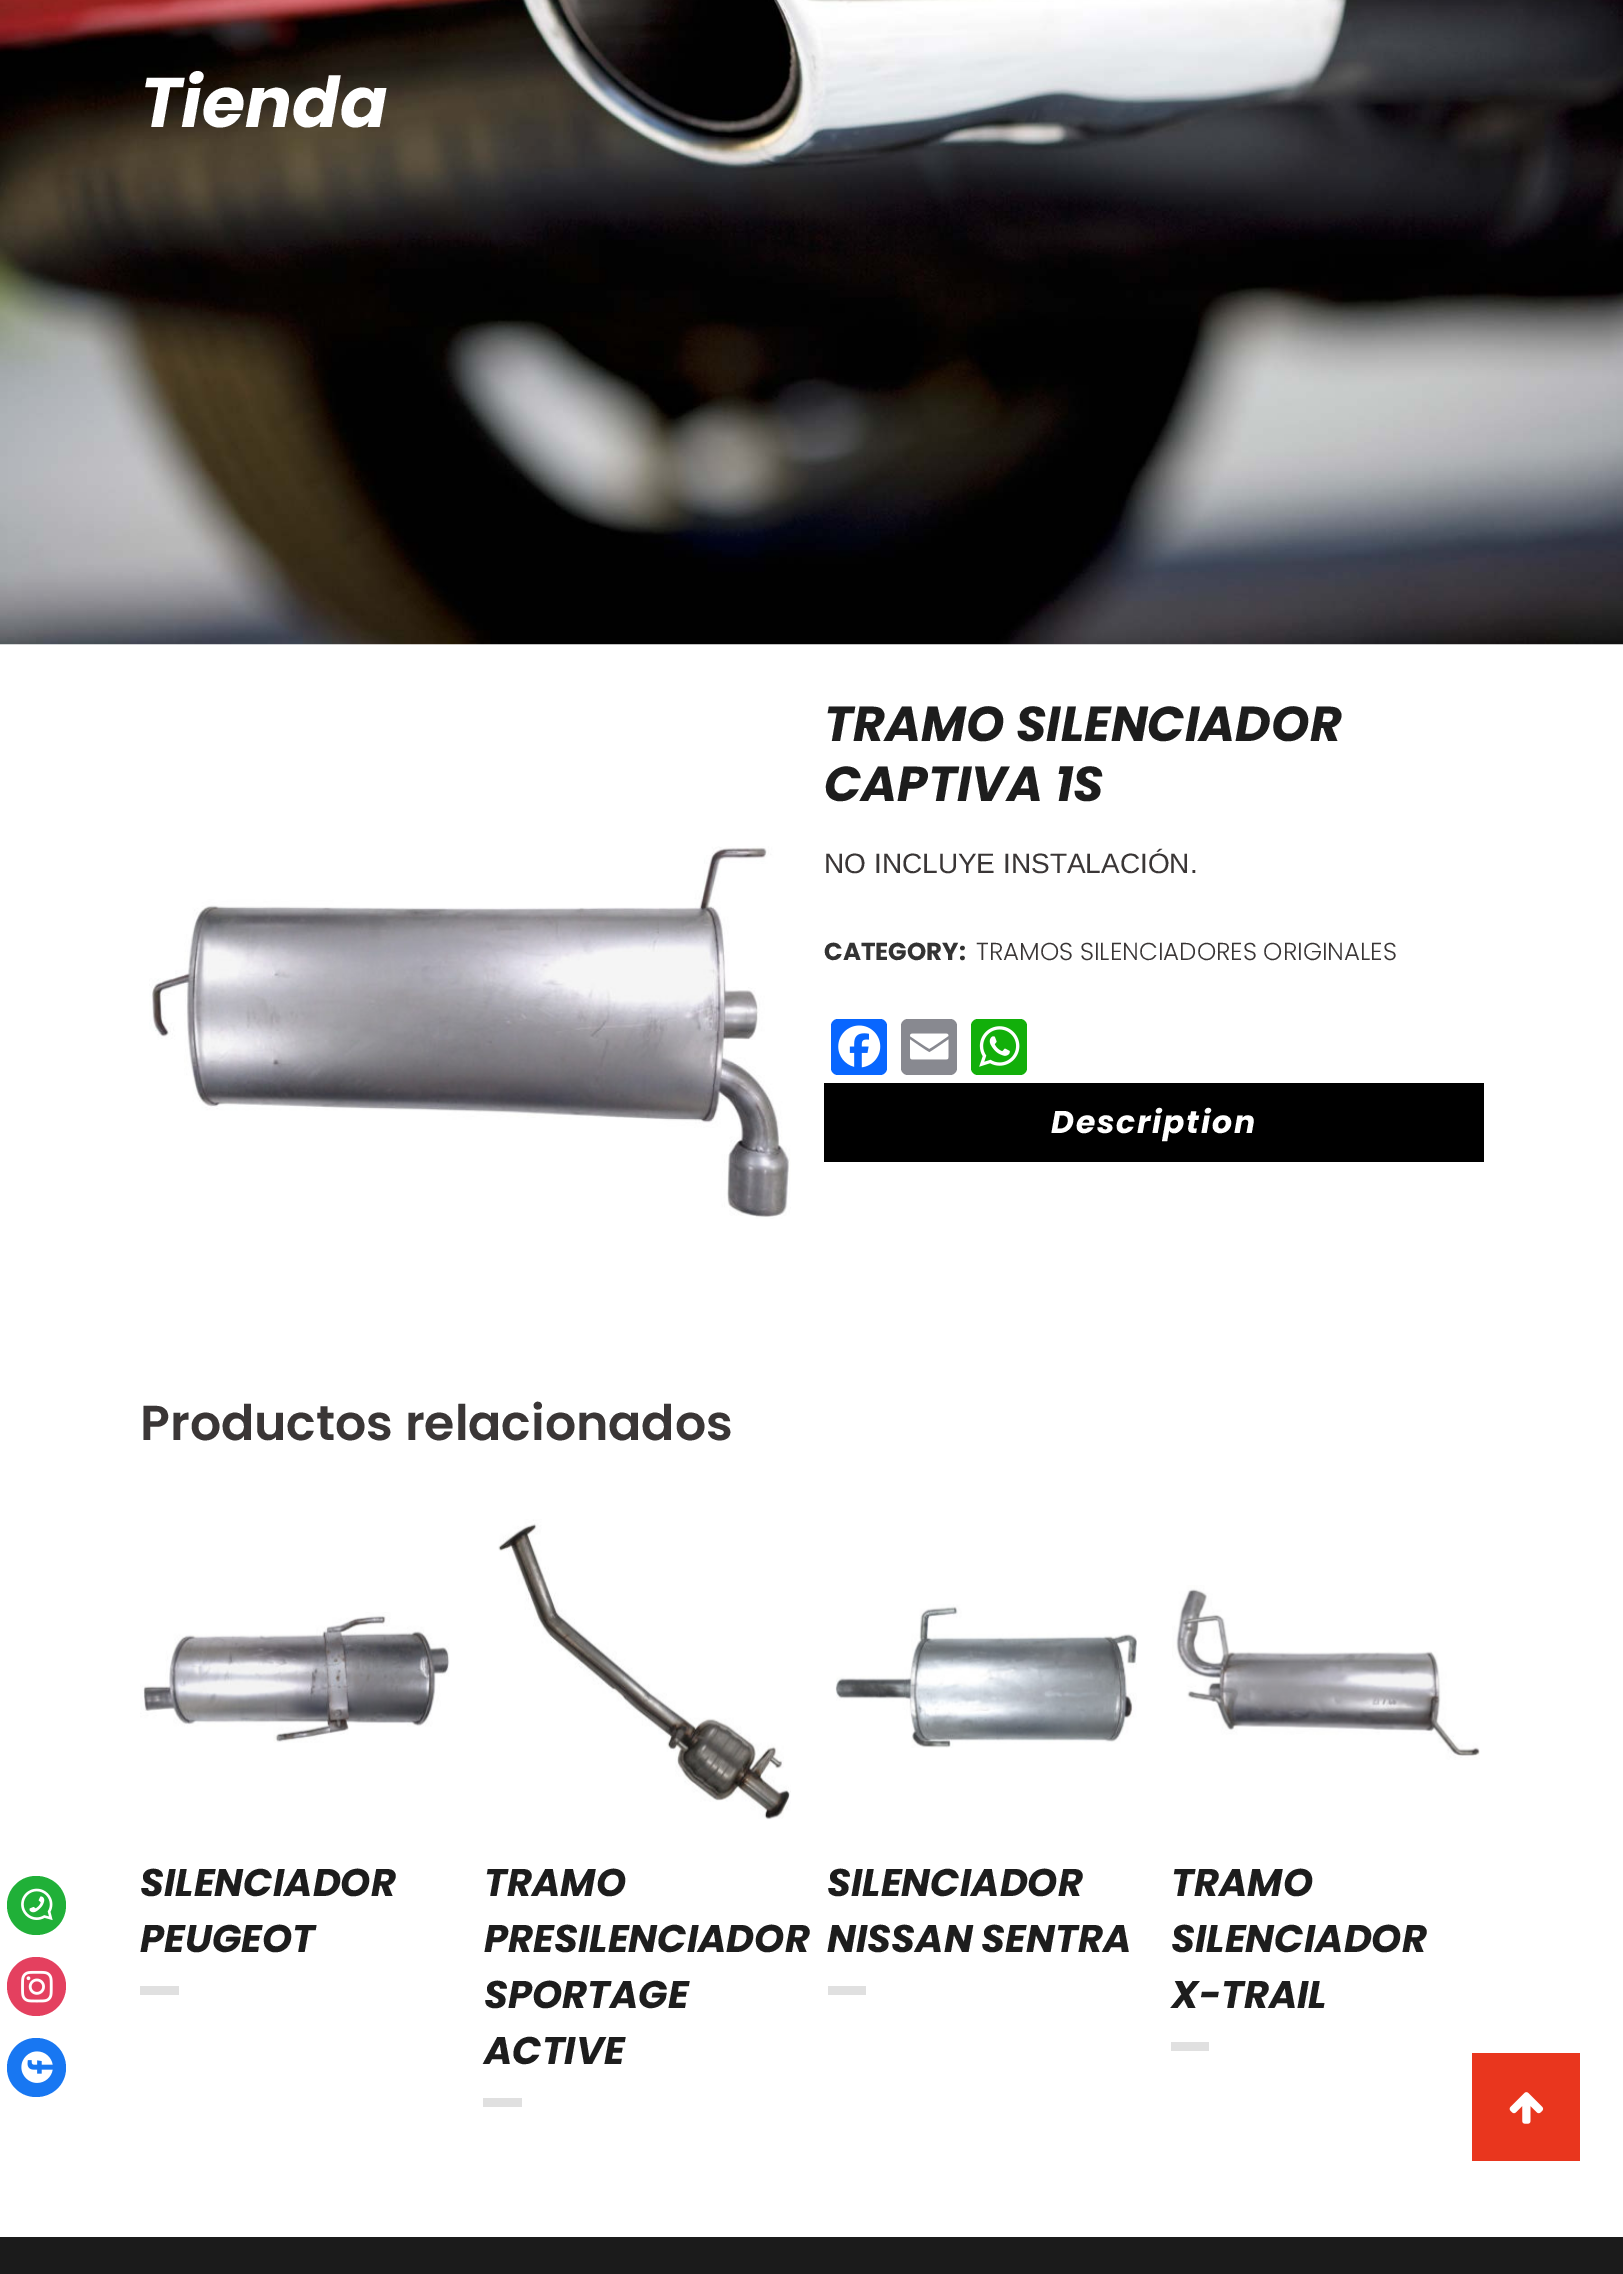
%!PS
<< /PageSize [1623 2274] >> setpagedevice
/mt/moveto load def
/ct/curveto load def
/cp/closepath load def
/fl/fill load def
/co { dup -16 bitshift 255 div exch dup -8 bitshift 255 and 255 div exch 255 and 255 div setrgbcolor } def
/fn { [ exch dup neg 0 0 3 -1 roll 0 0 ] selectfont } def
/tx { co fn moveto show } def
/bx { co rectfill } def
/rr { 5 dict begin { /r /h /w /y /x } { exch def } forall
  x r add y moveto x w add y 2 copy h add r arct x w add y h add x 1 index r arct
  x y h add x y r arct x y 2 copy exch w add exch r arct closepath end } def
/im { 5 dict begin { /h /w /y /x /name } { exch def } forall
  gsave x y translate w h scale
  w h 8 [w 0 0 h 0 0] name (r) file false 3 colorimage grestore end } def
0 2274 translate 1 -1 scale
4 setmiterlimit
0 0 1623 2274 16#FFFFFF bx
16#20B038 co
7 1905 mt 7 1889 20 1876 36 1876 ct 53 1876 66 1889 66 1905 ct 66 1922 53 1935 36 1935 ct 20 1935 7 1922 7 1905 ct cp fl
(media/1.raw) 21 1888 32 33 im
16#E4405F co
7 1986 mt 7 1970 20 1957 36 1957 ct 53 1957 66 1970 66 1986 ct 66 2003 53 2016 36 2016 ct 20 2016 7 2003 7 1986 ct cp fl
(media/2.raw) 21 1970 32 33 im
16#1877F2 co
7 2068 mt 7 2051 20 2038 36 2038 ct 53 2038 66 2051 66 2068 ct 66 2084 53 2097 36 2097 ct 20 2097 7 2084 7 2068 ct cp fl
(media/3.raw) 21 2051 32 32 im
(media/4.raw) 0 0 1623 645 im
(media/5.raw) 149 846 642 373 im
16#0866FF co
831 1019 56 56 7 rr fl
(media/6.raw) 838 1025 43 43 im
16#888990 co
901 1019 56 56 7 rr fl
(media/7.raw) 910 1033 39 27 im
16#12AF0A co
971 1019 56 56 7 rr fl
(media/8.raw) 979 1026 41 41 im
824 1083 660 79 16#000000 bx
(media/9.raw) 140 1612 310 131 im
140 1986 39 9 16#E0E0E0 bx
(media/10.raw) 498 1519 293 301 im
483 2098 39 9 16#E0E0E0 bx
(media/11.raw) 835 1604 302 144 im
828 1986 38 9 16#E0E0E0 bx
(media/12.raw) 1172 1585 308 175 im
1171 2042 38 9 16#E0E0E0 bx
1472 2053 108 108 16#E9361E bx
(media/13.raw) 1509 2092 35 32 im
0 2237 1623 37 16#1B1B1B bx
(Tienda) 140 127 /Poppins-BoldItalic 70 16#FFFFFF tx
(TRAMO SILENCIADOR) 824 741 /Poppins-BoldItalic 49 16#1D1D1D tx
(CAPTIVA 1S) 824 801 /Poppins-BoldItalic 49 16#1D1D1D tx
(NO INCLUYE INSTALACIÓN.) 824 873 /LiberationSans-Regular 28 16#3A3636 tx
(CATEGORY:) 824 960 /Poppins-Bold 24.5 16#333333 tx
(TRAMOS SILENCIADORES ORIGINALES) 976 960 /Poppins-Light 24.5 16#3A3636 tx
/Poppins-BoldItalic 31.5 fn
16#FFFFFF co
1051 1133 mt 1.75 0 (Description) ashow
(Productos relacionados) 140 1440 /Poppins-SemiBold 49 16#3A3636 tx
(SILENCIADOR) 140 1896 /Poppins-BoldItalic 38.5 16#1D1D1D tx
(PEUGEOT) 140 1952 /Poppins-BoldItalic 38.5 16#1D1D1D tx
(TRAMO) 484 1896 /Poppins-BoldItalic 38.5 16#1D1D1D tx
(PRESILENCIADOR) 484 1952 /Poppins-BoldItalic 38.5 16#1D1D1D tx
(SPORTAGE) 484 2008 /Poppins-BoldItalic 38.5 16#1D1D1D tx
(ACTIVE) 484 2064 /Poppins-BoldItalic 38.5 16#1D1D1D tx
(SILENCIADOR) 827 1896 /Poppins-BoldItalic 38.5 16#1D1D1D tx
(NISSAN SENTRA) 827 1952 /Poppins-BoldItalic 38.5 16#1D1D1D tx
(TRAMO) 1171 1896 /Poppins-BoldItalic 38.5 16#1D1D1D tx
(SILENCIADOR) 1171 1952 /Poppins-BoldItalic 38.5 16#1D1D1D tx
(X-TRAIL) 1171 2008 /Poppins-BoldItalic 38.5 16#1D1D1D tx
showpage
